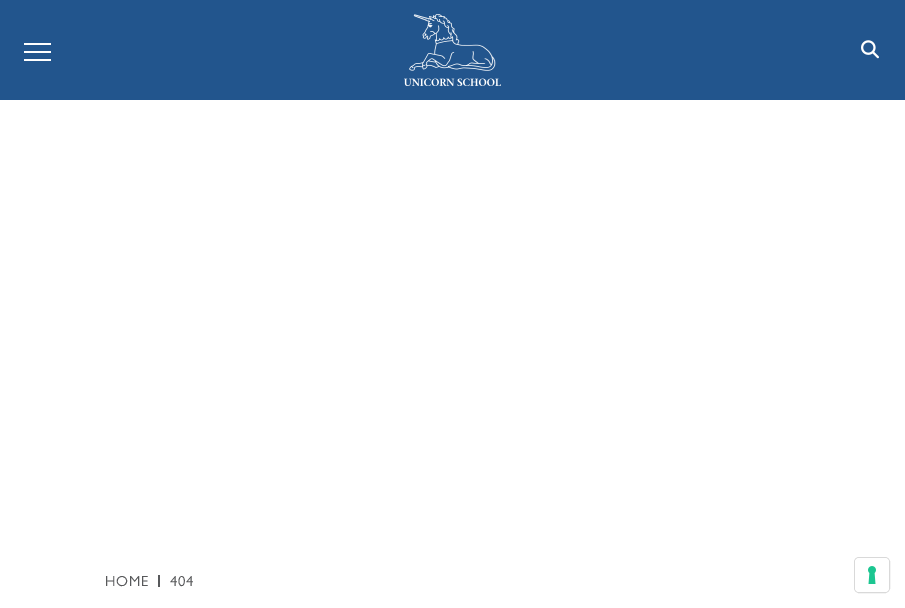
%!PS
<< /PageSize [905 608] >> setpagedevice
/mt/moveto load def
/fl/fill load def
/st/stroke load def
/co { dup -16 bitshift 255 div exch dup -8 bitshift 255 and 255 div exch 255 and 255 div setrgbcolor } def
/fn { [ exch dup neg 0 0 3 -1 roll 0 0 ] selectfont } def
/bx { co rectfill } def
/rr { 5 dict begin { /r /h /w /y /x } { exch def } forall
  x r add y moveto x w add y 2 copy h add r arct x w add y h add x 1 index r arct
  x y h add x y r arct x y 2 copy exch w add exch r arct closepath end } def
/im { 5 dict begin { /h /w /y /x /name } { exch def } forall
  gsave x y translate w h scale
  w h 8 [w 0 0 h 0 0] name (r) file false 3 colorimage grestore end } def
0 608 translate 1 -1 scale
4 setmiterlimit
0 0 905 608 16#FFFFFF bx
0 0 905 100 16#22558D bx
(media/1.raw) 404 14 97 72 im
24 51 27 2 16#FFFFFF bx
24 43 27 2 16#FFFFFF bx
24 59 27 2 16#FFFFFF bx
(media/2.raw) 861 40 18 19 im
158 575 2 12 16#58595B bx
16#D9D9D9 co
854.5 557.5 35 35 4.5 rr st
16#FFFFFF co
855 558 34 34 4 rr fl
(media/3.raw) 868 566 8 18 im
/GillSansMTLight-Bold 14 fn
16#58595B co
105 586 mt 1 0 (HOME) ashow
170 586 mt 1 0 (404) ashow
showpage
